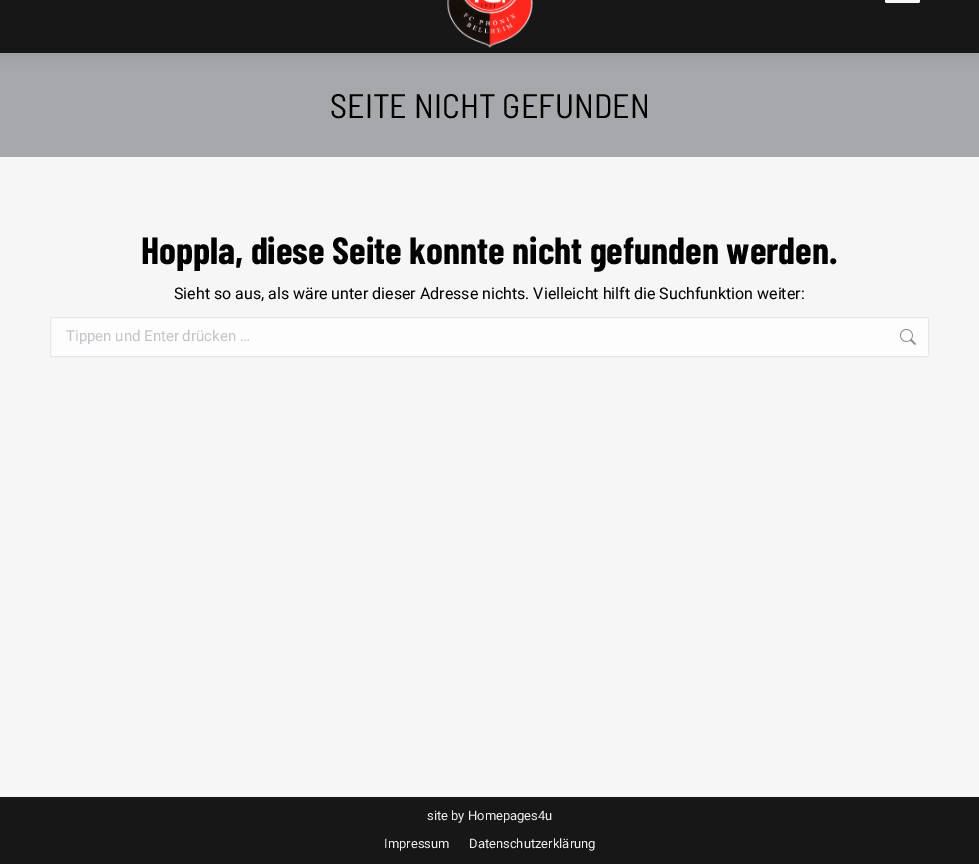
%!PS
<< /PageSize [979 864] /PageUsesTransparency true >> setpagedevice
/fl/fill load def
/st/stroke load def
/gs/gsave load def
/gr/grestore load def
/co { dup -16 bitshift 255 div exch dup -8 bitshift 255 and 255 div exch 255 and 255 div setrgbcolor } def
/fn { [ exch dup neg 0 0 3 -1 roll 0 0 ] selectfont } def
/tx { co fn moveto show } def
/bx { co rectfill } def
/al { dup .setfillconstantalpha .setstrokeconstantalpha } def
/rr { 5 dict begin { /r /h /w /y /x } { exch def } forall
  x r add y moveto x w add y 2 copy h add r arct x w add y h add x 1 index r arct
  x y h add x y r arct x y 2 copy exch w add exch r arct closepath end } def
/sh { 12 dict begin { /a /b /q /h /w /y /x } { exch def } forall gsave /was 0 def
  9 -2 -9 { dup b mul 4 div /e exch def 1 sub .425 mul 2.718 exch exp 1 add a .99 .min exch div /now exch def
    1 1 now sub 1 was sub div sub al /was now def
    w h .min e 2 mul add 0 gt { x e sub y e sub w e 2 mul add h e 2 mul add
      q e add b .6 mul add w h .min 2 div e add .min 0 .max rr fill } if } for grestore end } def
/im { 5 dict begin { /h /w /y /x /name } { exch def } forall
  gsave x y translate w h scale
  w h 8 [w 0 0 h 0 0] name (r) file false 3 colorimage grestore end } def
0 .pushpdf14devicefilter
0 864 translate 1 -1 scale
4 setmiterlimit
0 0 979 864 16#F6F6F7 bx
0 53 979 104 16#A6A8AB bx
16#000000 co
-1 -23 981 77 0 7.5 .07 sh
0 0 979 53 16#171717 bx
(media/1.raw) 447 0 86 48 im
16#F6F6F7 co
885 -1 35 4 2 rr fl
16#FDFDFD co
50.5 317.5 878 39 1.5 rr gs fl gr
16#E7E7E7 co
st
(media/2.raw) 900 329 16 16 im
0 797 979 67 16#171717 bx
(SEITE NICHT GEFUNDEN) 330 118 /BarlowSemiCondensed-Regular 34 16#000000 tx
(Hoppla, diese Seite konnte nicht gefunden werden.) 141 264 /BarlowCondensed-Bold 38 16#000000 tx
(Sieht so aus, als wäre unter dieser Adresse nichts. Vielleicht hilft die Suchfunktion weiter:) 174 299 /Roboto-Regular 16 16#000000 tx
(Tippen und Enter drücken …) 66 341 /Roboto-Regular 15 16#C4C5C9 tx
(site by Homepages4u) 427 820 /Roboto-Regular 13 16#EEEEEE tx
(Impressum) 384 848 /Roboto-Regular 13 16#EEEEEE tx
(Datenschutzerklärung) 469 848 /Roboto-Regular 13 16#EEEEEE tx
.poppdf14devicefilter showpage
